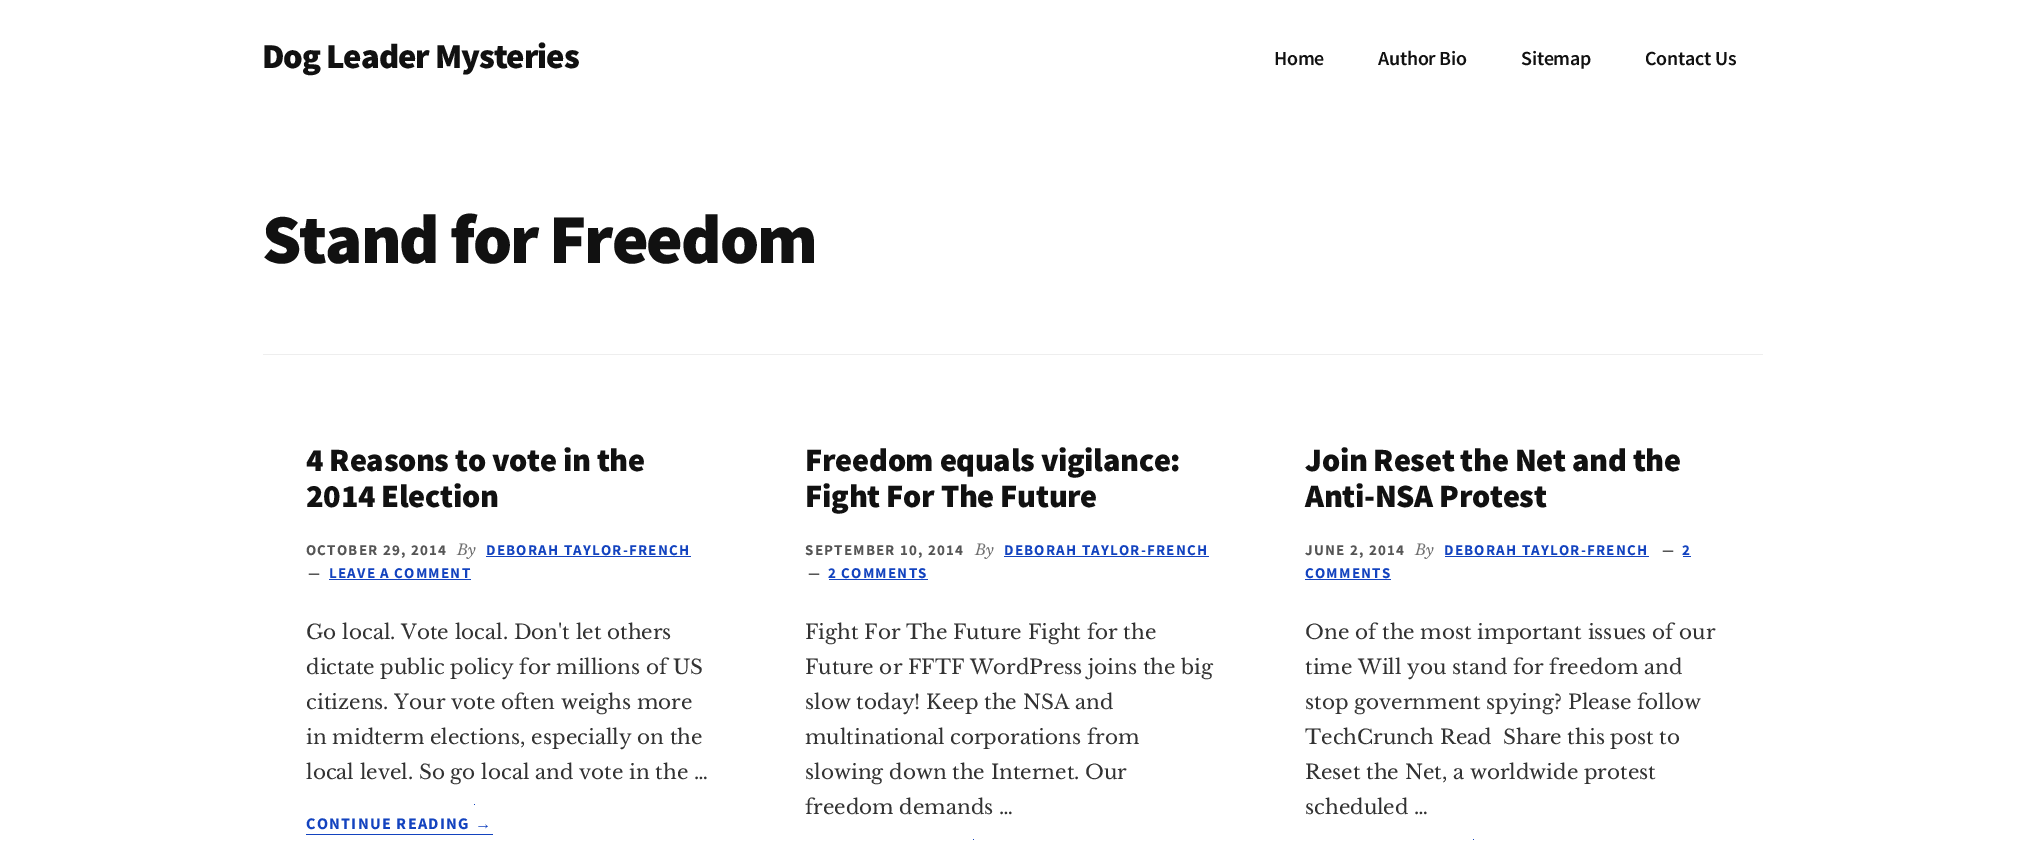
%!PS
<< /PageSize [2023 851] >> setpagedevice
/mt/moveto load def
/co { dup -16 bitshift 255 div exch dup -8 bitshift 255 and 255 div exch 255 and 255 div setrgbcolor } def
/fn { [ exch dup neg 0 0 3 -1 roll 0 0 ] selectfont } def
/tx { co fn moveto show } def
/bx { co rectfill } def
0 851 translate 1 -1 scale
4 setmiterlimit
0 0 2023 851 16#FFFFFF bx
263 354 1500 1 16#EEEEEE bx
486 556 205 1 16#1343BF bx
329 579 142 1 16#1343BF bx
474 804 1 1 16#1343BF bx
306 834 187 1 16#1343BF bx
1004 556 205 1 16#1343BF bx
829 579 99 1 16#1343BF bx
973 839 1 1 16#1343BF bx
1445 556 204 1 16#1343BF bx
1683 556 8 1 16#1343BF bx
1305 579 86 1 16#1343BF bx
1473 839 1 1 16#1343BF bx
/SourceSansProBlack-Black 35 fn
16#111111 co
262 68 mt -1.05 0 (Dog Leader Mysteries) ashow
/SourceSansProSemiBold-SemiBold 20 fn
1274 65 mt -.25 0 (Home) ashow
1378 65 mt -.25 0 (Author Bio) ashow
1521 65 mt -.25 0 (Sitemap) ashow
1645 65 mt -.25 0 (Contact Us) ashow
/SourceSansProBlack-Black 70 fn
262 263 mt -2.1 0 (Stand for Freedom) ashow
/SourceSansProBlack-Black 32.5 fn
306 471 mt -.3 0 (4 Reasons to vote in the) ashow
306 507 mt -.3 0 (2014 Election) ashow
/SourceSansPro-Bold 15 fn
16#555555 co
306 555 mt 1.2 0 (OCTOBER 29, 2014) ashow
(By) 457 555 /LibreBaskerville-Italic 15 16#707070 tx
/SourceSansPro-Bold 15 fn
16#1343BF co
486 555 mt 1.2 0 (DEBORAH TAYLOR-FRENCH) ashow
16#555555 co
308 578 mt 1.2 0 (—) ashow
16#1343BF co
329 578 mt 1.2 0 (LEAVE A COMMENT) ashow
(Go local. Vote local. Don't let others) 306 639 /LibreBaskerville-Regular 20 16#333333 tx
(dictate public policy for millions of US) 306 674 /LibreBaskerville-Regular 20 16#333333 tx
(citizens. Your vote often weighs more) 306 709 /LibreBaskerville-Regular 20 16#333333 tx
(in midterm elections, especially on the) 306 744 /LibreBaskerville-Regular 20 16#333333 tx
(local level. So go local and vote in the …) 306 779 /LibreBaskerville-Regular 20 16#333333 tx
/SourceSansPro-Bold 16.25 fn
16#1343BF co
306 829 mt 1.25 0 (CONTINUE READING) ashow
/LiberationSans-Bold 16.25 fn
475 829 mt 1.25 0 (→) ashow
/SourceSansProBlack-Black 32.5 fn
16#111111 co
805 471 mt -.3 0 (Freedom equals vigilance:) ashow
805 507 mt -.3 0 (Fight For The Future) ashow
/SourceSansPro-Bold 15 fn
16#555555 co
805 555 mt 1.2 0 (SEPTEMBER 10, 2014) ashow
(By) 975 555 /LibreBaskerville-Italic 15 16#707070 tx
/SourceSansPro-Bold 15 fn
16#1343BF co
1004 555 mt 1.2 0 (DEBORAH TAYLOR-FRENCH) ashow
16#555555 co
808 578 mt 1.2 0 (—) ashow
16#1343BF co
828 578 mt 1.2 0 (2 COMMENTS) ashow
(Fight For The Future Fight for the) 805 639 /LibreBaskerville-Regular 20 16#333333 tx
(Future or FFTF WordPress joins the big) 805 674 /LibreBaskerville-Regular 20 16#333333 tx
(slow today! Keep the NSA and) 805 709 /LibreBaskerville-Regular 20 16#333333 tx
(multinational corporations from) 805 744 /LibreBaskerville-Regular 20 16#333333 tx
(slowing down the Internet. Our) 805 779 /LibreBaskerville-Regular 20 16#333333 tx
(freedom demands …) 805 814 /LibreBaskerville-Regular 20 16#333333 tx
/SourceSansProBlack-Black 32.5 fn
16#111111 co
1305 471 mt -.3 0 (Join Reset the Net and the) ashow
1305 507 mt -.3 0 (Anti-NSA Protest) ashow
/SourceSansPro-Bold 15 fn
16#555555 co
1305 555 mt 1.2 0 (JUNE 2, 2014) ashow
(By) 1415 555 /LibreBaskerville-Italic 15 16#707070 tx
/SourceSansPro-Bold 15 fn
16#1343BF co
1444 555 mt 1.2 0 (DEBORAH TAYLOR-FRENCH) ashow
16#555555 co
1662 555 mt 1.2 0 (—) ashow
16#1343BF co
1682 555 mt 1.2 0 (2) ashow
1305 578 mt 1.2 0 (COMMENTS) ashow
(One of the most important issues of our) 1305 639 /LibreBaskerville-Regular 20 16#333333 tx
(time Will you stand for freedom and) 1305 674 /LibreBaskerville-Regular 20 16#333333 tx
(stop government spying? Please follow) 1305 709 /LibreBaskerville-Regular 20 16#333333 tx
(TechCrunch Read) 1305 744 /LibreBaskerville-Regular 20 16#333333 tx
(Share this post to) 1503 744 /LibreBaskerville-Regular 20 16#333333 tx
(Reset the Net, a worldwide protest) 1305 779 /LibreBaskerville-Regular 20 16#333333 tx
(scheduled …) 1305 814 /LibreBaskerville-Regular 20 16#333333 tx
showpage
